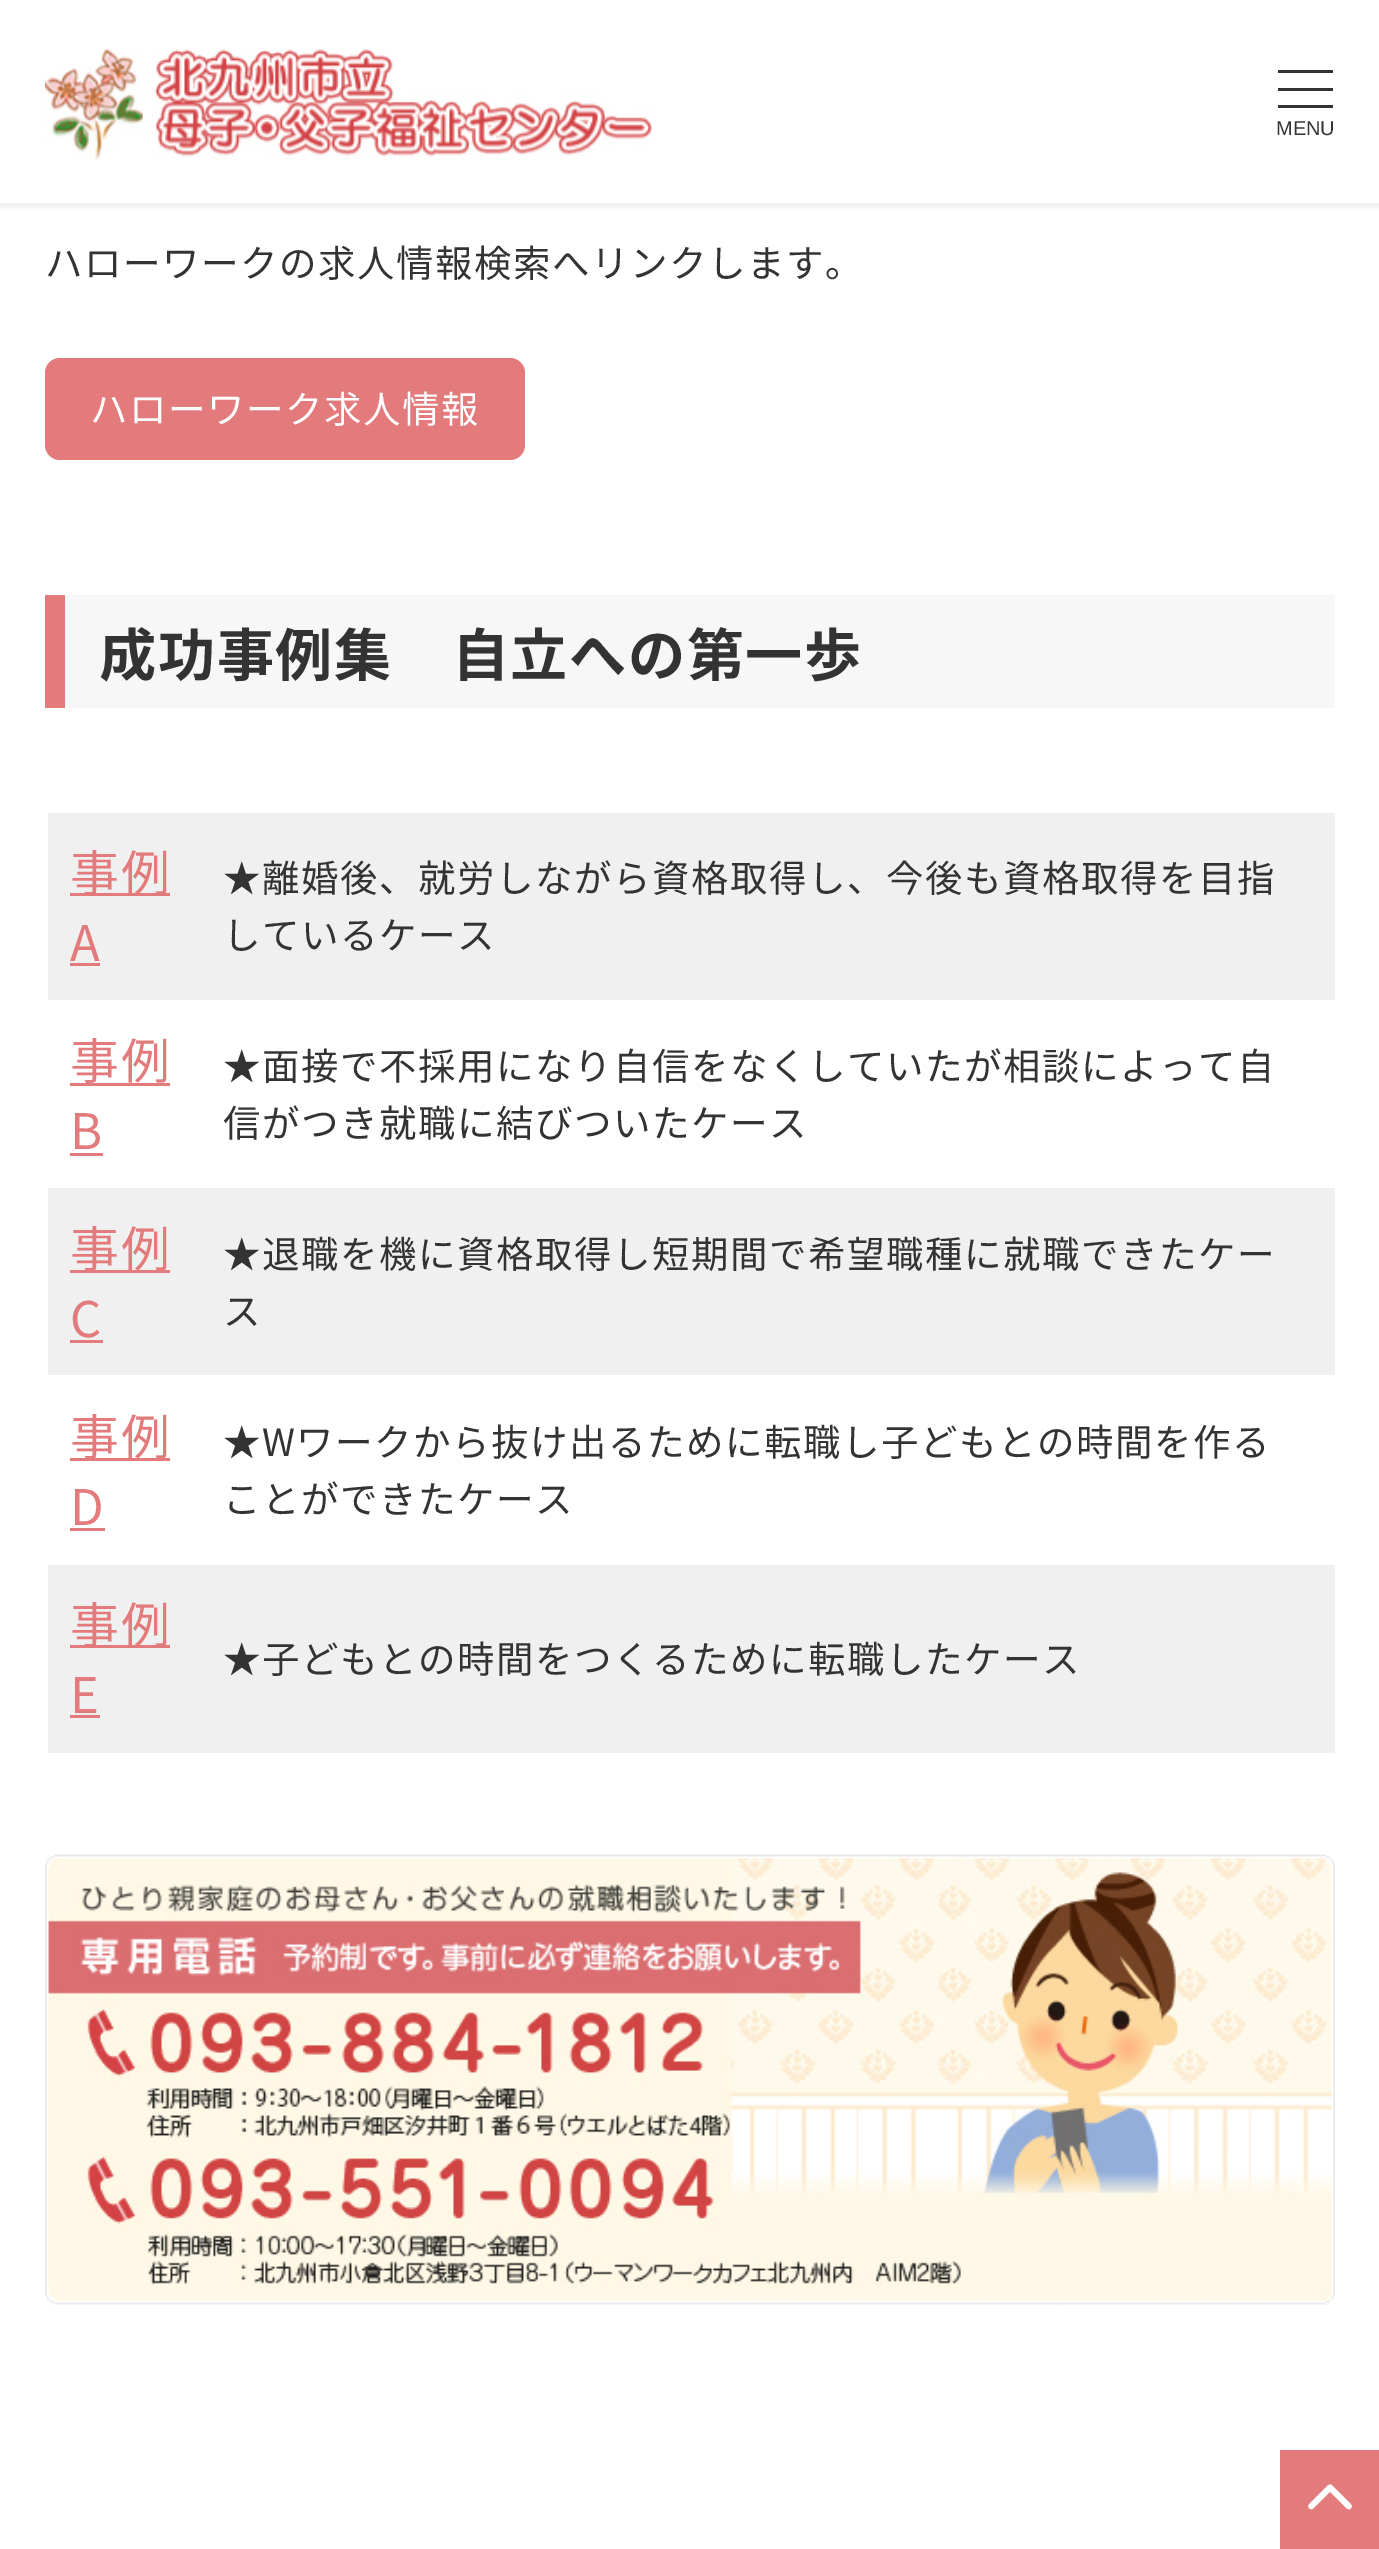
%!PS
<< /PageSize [1379 2549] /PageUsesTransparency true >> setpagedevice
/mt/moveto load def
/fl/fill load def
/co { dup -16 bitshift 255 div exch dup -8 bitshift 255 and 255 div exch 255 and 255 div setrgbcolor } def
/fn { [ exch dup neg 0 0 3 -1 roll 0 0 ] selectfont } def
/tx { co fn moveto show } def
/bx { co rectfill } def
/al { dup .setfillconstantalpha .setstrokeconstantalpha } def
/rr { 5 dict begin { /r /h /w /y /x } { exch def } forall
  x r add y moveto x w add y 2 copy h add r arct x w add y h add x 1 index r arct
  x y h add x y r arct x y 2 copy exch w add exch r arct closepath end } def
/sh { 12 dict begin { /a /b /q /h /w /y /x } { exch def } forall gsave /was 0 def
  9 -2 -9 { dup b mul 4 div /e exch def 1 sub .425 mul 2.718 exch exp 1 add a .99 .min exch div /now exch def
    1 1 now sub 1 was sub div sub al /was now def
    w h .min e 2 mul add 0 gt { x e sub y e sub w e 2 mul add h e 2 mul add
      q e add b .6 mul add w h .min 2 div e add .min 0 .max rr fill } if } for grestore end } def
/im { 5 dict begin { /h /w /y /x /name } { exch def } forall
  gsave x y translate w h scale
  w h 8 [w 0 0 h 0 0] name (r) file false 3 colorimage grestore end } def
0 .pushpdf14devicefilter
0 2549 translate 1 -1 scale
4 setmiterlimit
0 0 1379 2549 16#FFFFFF bx
16#000000 co
-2 0 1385 208 0 2.5 .05 sh
0 0 1379 203 16#FFFFFF bx
(media/1.raw) 45 49 607 111 im
1278 70 55 3 16#333333 bx
1278 88 55 3 16#333333 bx
1278 105 55 3 16#333333 bx
16#E37B7C co
45 358 480 102 15 rr fl
65 595 1270 113 16#F7F7F7 bx
45 595 20 113 16#E37B7C bx
48 813 1287 187 16#F0F0F0 bx
70 893 100 3 16#E37B7C bx
70 963 30 3 16#E37B7C bx
70 1083 100 3 16#E37B7C bx
70 1153 33 3 16#E37B7C bx
48 1188 1287 187 16#F0F0F0 bx
70 1270 100 3 16#E37B7C bx
70 1340 33 3 16#E37B7C bx
70 1458 100 3 16#E37B7C bx
70 1528 35 3 16#E37B7C bx
48 1565 1287 188 16#F0F0F0 bx
70 1645 100 3 16#E37B7C bx
70 1715 30 3 16#E37B7C bx
(media/2.raw) 45 1854 1290 451 im
1280 2450 99 99 16#E37B7C bx
(media/3.raw) 1308 2484 44 26 im
(MENU) 1276 135 /LiberationSans-Regular 20 16#333333 tx
/NotoSansJP-Regular 37.5 fn
45 277 mt 1.5 0 (ハローワークの求人情報検索へリンクします。) ashow
16#FFFFFF co
90 423 mt 1.5 0 (ハローワーク求人情報) ashow
/NotoSansJP-Bold 57.25 fn
16#333333 co
99 676 mt 1.5 0 (成功事例集　自立への第一歩) ashow
/NotoSansJP-Regular 49 fn
16#E37B7C co
70 891 mt 1.5 0 (事例) ashow
70 961 mt 1.5 0 (A) ashow
/NotoSansJP-Regular 37.5 fn
16#333333 co
223 892 mt 1.5 0 (★離婚後、就労しながら資格取得し、今後も資格取得を目指) ashow
223 949 mt 1.5 0 (しているケース) ashow
/NotoSansJP-Regular 49 fn
16#E37B7C co
70 1079 mt 1.5 0 (事例) ashow
70 1149 mt 1.5 0 (B) ashow
/NotoSansJP-Regular 37.5 fn
16#333333 co
223 1080 mt 1.5 0 (★面接で不採用になり自信をなくしていたが相談によって自) ashow
223 1137 mt 1.5 0 (信がつき就職に結びついたケース) ashow
/NotoSansJP-Regular 49 fn
16#E37B7C co
70 1267 mt 1.5 0 (事例) ashow
70 1337 mt 1.5 0 (C) ashow
/NotoSansJP-Regular 37.5 fn
16#333333 co
223 1268 mt 1.5 0 (★退職を機に資格取得し短期間で希望職種に就職できたケー) ashow
223 1325 mt 1.5 0 (ス) ashow
/NotoSansJP-Regular 49 fn
16#E37B7C co
70 1455 mt 1.5 0 (事例) ashow
70 1525 mt 1.5 0 (D) ashow
/NotoSansJP-Regular 37.5 fn
16#333333 co
223 1456 mt 1.5 0 (★Wワークから抜け出るために転職し子どもとの時間を作る) ashow
223 1513 mt 1.5 0 (ことができたケース) ashow
/NotoSansJP-Regular 49 fn
16#E37B7C co
70 1643 mt 1.5 0 (事例) ashow
70 1713 mt 1.5 0 (E) ashow
/NotoSansJP-Regular 37.5 fn
16#333333 co
223 1673 mt 1.5 0 (★子どもとの時間をつくるために転職したケース) ashow
.poppdf14devicefilter showpage
